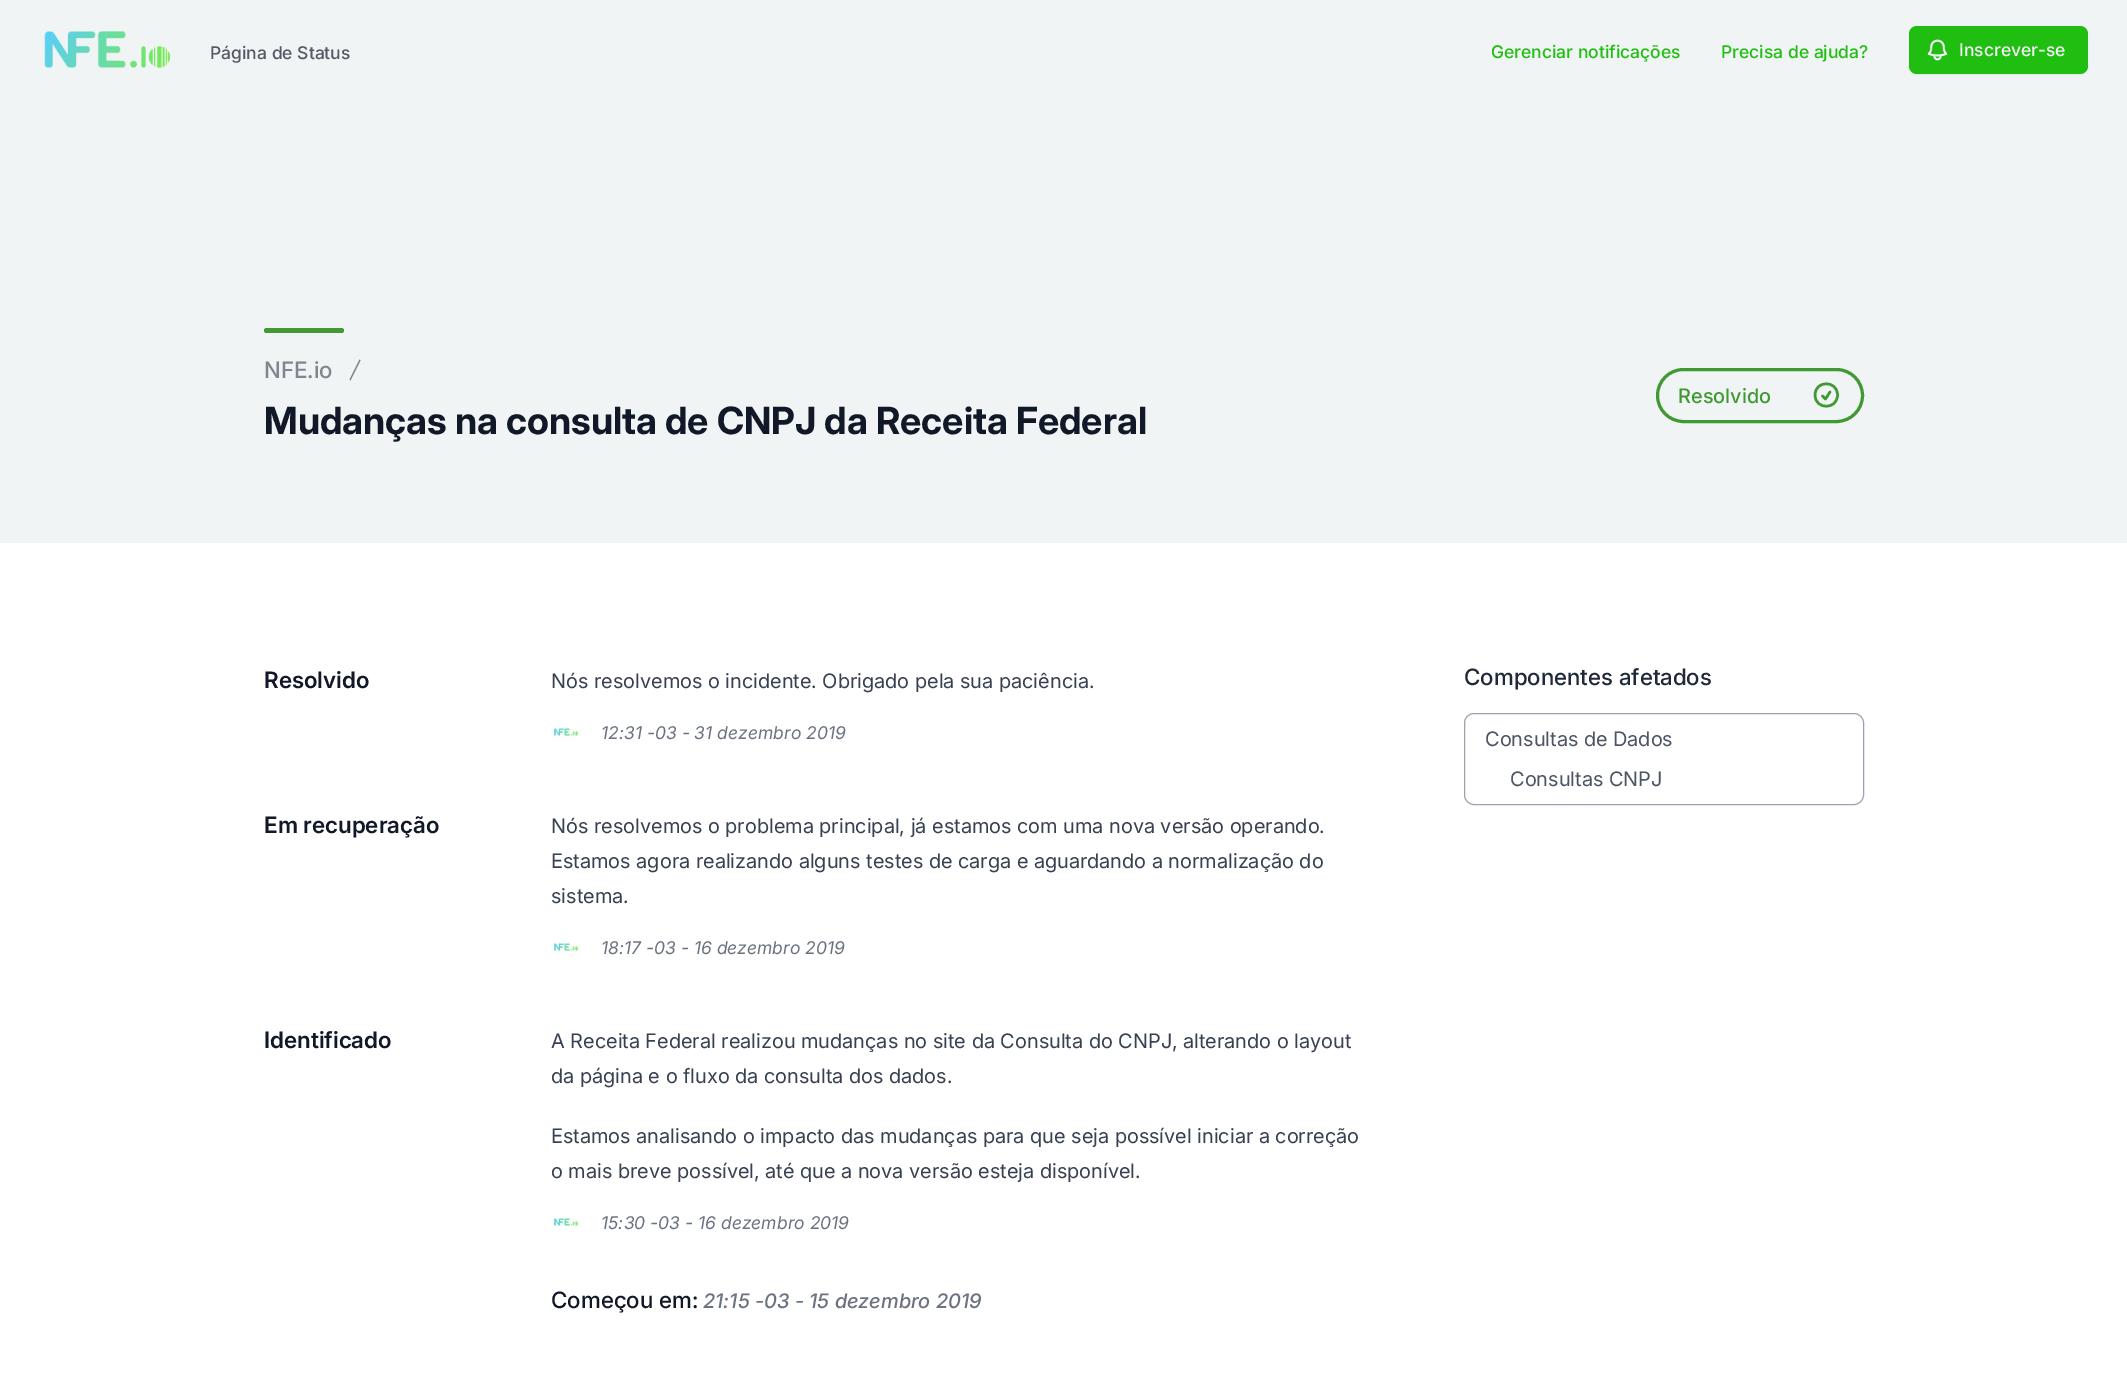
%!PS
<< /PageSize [2127 1397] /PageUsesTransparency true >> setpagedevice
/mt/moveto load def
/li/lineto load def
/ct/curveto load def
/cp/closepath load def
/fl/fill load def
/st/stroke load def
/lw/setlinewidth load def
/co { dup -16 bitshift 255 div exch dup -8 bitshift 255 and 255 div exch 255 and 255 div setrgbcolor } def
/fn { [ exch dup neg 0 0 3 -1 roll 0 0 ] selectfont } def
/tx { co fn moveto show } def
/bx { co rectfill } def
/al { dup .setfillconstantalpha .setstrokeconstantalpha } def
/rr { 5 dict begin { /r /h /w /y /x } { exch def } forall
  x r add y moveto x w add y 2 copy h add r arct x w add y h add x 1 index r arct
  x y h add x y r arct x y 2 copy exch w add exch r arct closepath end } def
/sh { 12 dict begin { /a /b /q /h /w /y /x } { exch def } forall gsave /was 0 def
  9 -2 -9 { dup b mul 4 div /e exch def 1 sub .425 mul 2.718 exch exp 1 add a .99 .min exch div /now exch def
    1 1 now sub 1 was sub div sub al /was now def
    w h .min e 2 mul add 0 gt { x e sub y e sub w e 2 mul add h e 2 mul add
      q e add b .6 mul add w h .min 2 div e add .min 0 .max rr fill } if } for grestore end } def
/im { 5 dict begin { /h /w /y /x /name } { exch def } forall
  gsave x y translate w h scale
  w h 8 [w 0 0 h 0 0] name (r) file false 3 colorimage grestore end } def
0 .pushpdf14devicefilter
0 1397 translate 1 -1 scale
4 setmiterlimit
0 0 2127 1397 16#FFFFFF bx
0 0 2127 543 16#F0F4F5 bx
(media/1.raw) 44 31 127 38 im
16#000000 co
1909 28 179 47 8 1 .05 sh
16#21BE12 co
1909 26 179 48 8 rr fl
(media/2.raw) 1927 39 21 22 im
16#419933 co
264 328 80 5 2.5 rr fl
16#81868E co
349.5 379.5 mt 359.5 359.5 li 360.5 360.5 li 350.5 380.5 li cp fl
16#419933 co
3 lw
1657.5 369.5 205 52 26 rr st
2.5 lw
1 setlinecap
1 setlinejoin
1822.5 396 mt 1825.5 399 li 1830 392 li 1837.5 395 mt 1837.5 410 1815 410 1815 395 ct 1815 380 1837.5 380 1837.5 395 ct cp st
(media/3.raw) 552 726 29 14 im
(media/3.raw) 552 941 29 14 im
(media/3.raw) 552 1216 29 14 im
16#9CA3AF co
1 lw
0 setlinecap
0 setlinejoin
1464.5 713.5 399 91 9.5 rr st
(Página de Status) 210 59 /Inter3-Medium 17.5 16#545A65 tx
(Gerenciar notificações) 1491 58 /Inter3-Medium 17.5 16#21BE12 tx
(Precisa de ajuda?) 1721 58 /Inter3-Medium 17.5 16#21BE12 tx
(Inscrever-se) 1959 56 /Inter3-Medium 17.5 16#F3F4F6 tx
(NFE.io) 264 378 /Inter-Medium 22.5 16#81868E tx
(Mudanças na consulta de CNPJ da Receita Federal) 264 434 /Inter-Bold 37.5 16#111827 tx
(Resolvido) 1678 403 /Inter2-Medium 20 16#419933 tx
(Resolvido) 264 688 /Inter-SemiBold 22.5 16#111827 tx
(Nós resolvemos o incidente. Obrigado pela sua paciência.) 551 688 /Inter-Regular 20 16#374151 tx
(12:31 -03 - 31 dezembro 2019) 601 739 /Inter-Italic 17.5 16#6B7280 tx
(Em recuperação) 264 833 /Inter-SemiBold 22.5 16#111827 tx
(Nós resolvemos o problema principal, já estamos com uma nova versão operando.) 551 833 /Inter-Regular 20 16#374151 tx
(Estamos agora realizando alguns testes de carga e aguardando a normalização do) 551 868 /Inter-Regular 20 16#374151 tx
(sistema.) 551 903 /Inter-Regular 20 16#374151 tx
(18:17 -03 - 16 dezembro 2019) 601 954 /Inter-Italic 17.5 16#6B7280 tx
(Identificado) 264 1048 /Inter-SemiBold 22.5 16#111827 tx
(A Receita Federal realizou mudanças no site da Consulta do CNPJ, alterando o layout) 551 1048 /Inter-Regular 20 16#374151 tx
(da página e o fluxo da consulta dos dados.) 551 1083 /Inter-Regular 20 16#374151 tx
(Estamos analisando o impacto das mudanças para que seja possível iniciar a correção) 551 1143 /Inter-Regular 20 16#374151 tx
(o mais breve possível, até que a nova versão esteja disponível.) 551 1178 /Inter-Regular 20 16#374151 tx
(15:30 -03 - 16 dezembro 2019) 601 1229 /Inter-Italic 17.5 16#6B7280 tx
(Começou em:) 551 1308 /Inter-Medium 22.5 16#111827 tx
(21:15 -03 - 15 dezembro 2019) 703 1308 /Inter-MediumItalic 20 16#6B7280 tx
(Componentes afetados) 1464 685 /Inter-Medium 22.5 16#1F2937 tx
(Consultas de Dados) 1485 746 /Inter-Regular 20 16#4B5563 tx
(Consultas CNPJ) 1510 786 /Inter-Regular 20 16#4B5563 tx
.poppdf14devicefilter showpage
